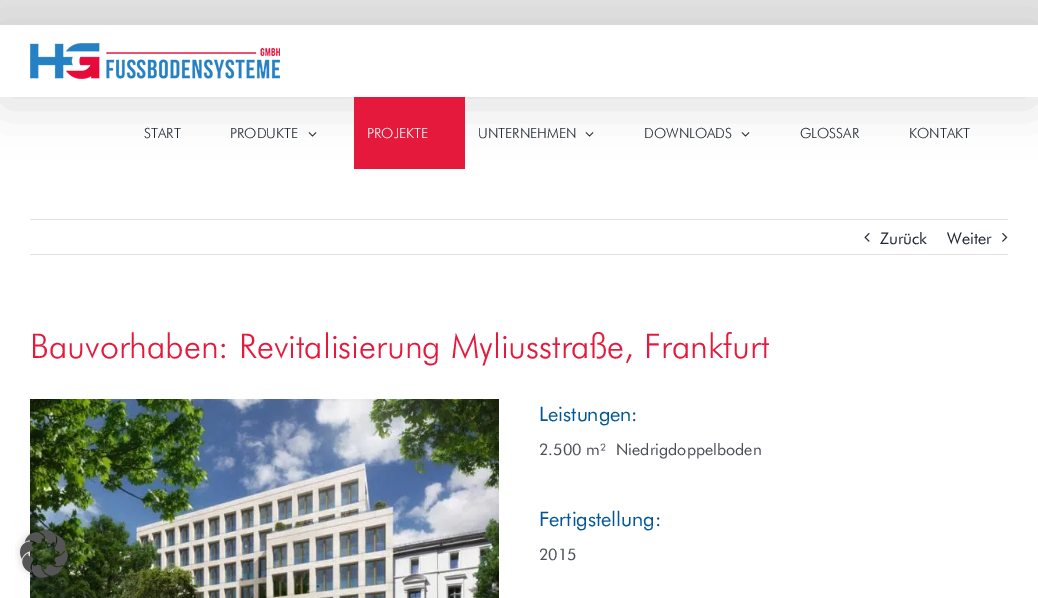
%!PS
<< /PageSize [1038 598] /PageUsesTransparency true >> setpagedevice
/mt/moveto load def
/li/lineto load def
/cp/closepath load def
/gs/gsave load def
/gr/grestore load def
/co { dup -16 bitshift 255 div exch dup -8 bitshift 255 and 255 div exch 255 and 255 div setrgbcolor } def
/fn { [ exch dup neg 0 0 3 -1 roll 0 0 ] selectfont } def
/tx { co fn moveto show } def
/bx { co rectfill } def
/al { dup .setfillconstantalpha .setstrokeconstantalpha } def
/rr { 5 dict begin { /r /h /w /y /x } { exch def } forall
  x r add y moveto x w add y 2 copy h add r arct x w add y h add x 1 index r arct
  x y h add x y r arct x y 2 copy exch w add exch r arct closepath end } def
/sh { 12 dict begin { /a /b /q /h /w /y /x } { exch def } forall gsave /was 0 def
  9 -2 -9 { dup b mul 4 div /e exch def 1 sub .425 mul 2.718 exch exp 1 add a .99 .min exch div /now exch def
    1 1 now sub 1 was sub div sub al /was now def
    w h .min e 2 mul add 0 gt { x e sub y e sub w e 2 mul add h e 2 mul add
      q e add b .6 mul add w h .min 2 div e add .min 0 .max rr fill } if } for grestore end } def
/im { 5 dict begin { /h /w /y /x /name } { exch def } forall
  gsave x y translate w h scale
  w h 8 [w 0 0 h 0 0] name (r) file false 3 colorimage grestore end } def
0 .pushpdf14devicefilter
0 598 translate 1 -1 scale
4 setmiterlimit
0 0 1038 598 16#E2E2E2 bx
0 25 1038 573 16#FFFFFF bx
gs
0 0 mt 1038 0 li 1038 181 li 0 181 li cp 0 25 mt 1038 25 li 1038 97 li 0 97 li cp eoclip newpath
16#000000 co
2 37 1034 68 0 25 .14 sh
gr
(media/1.raw) 30 43 250 36 im
(media/2.raw) 308 132 9 5 im
354 97 111 72 16#E5193C bx
(media/2.raw) 585 132 9 5 im
(media/2.raw) 741 132 9 5 im
30 219 978 1 16#E2E2E2 bx
30 254 978 1 16#E2E2E2 bx
(media/3.raw) 864 233 6 9 im
(media/4.raw) 1002 233 6 9 im
(media/5.raw) 30 399 469 199 im
(media/6.raw) 15 525 54 54 im
(START) 144 138 /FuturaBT-Light 14 16#212934 tx
(PRODUKTE) 230 138 /FuturaBT-Light 14 16#212934 tx
(PROJEKTE) 367 138 /FuturaBT-Light 14 16#FFFFFF tx
(UNTERNEHMEN) 478 138 /FuturaBT-Light 14 16#212934 tx
(DOWNLOADS) 644 138 /FuturaBT-Light 14 16#212934 tx
(GLOSSAR) 800 138 /FuturaBT-Light 14 16#212934 tx
(KONTAKT) 909 138 /FuturaBT-Light 14 16#212934 tx
(Zurück) 880 244 /FuturaBT-Regular 16 16#212934 tx
(Weiter) 947 244 /FuturaBT-Regular 16 16#212934 tx
(Bauvorhaben: Revitalisierung Myliusstraße, Frankfurt) 30 358 /FuturaBT-Light 34 16#E5193C tx
(Leistungen:) 539 421 /FuturaBT-Regular 20 16#005699 tx
(2.500 m²) 539 455 /FuturaBT-Regular 16 16#4A4E57 tx
(Niedrigdoppelboden) 616 455 /FuturaBT-Regular 16 16#4A4E57 tx
(Fertigstellung:) 539 526 /FuturaBT-Regular 20 16#005699 tx
(2015) 539 560 /FuturaBT-Regular 16 16#4A4E57 tx
.poppdf14devicefilter showpage
